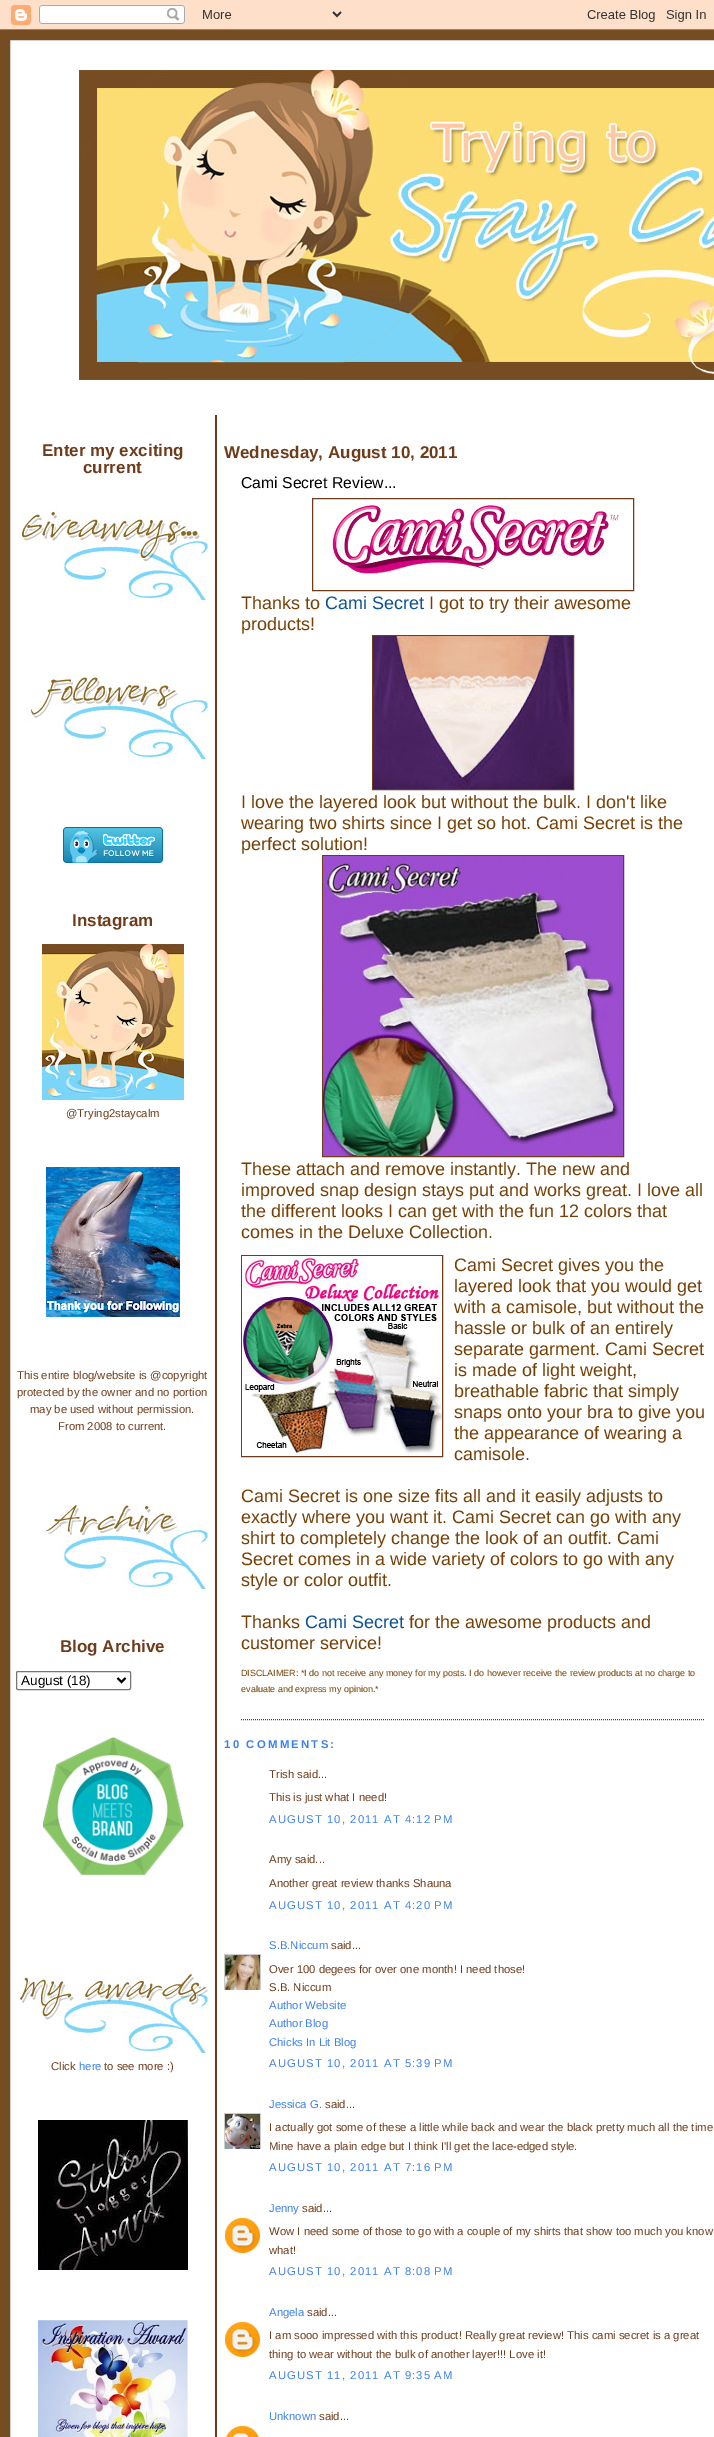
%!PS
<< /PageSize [714 2437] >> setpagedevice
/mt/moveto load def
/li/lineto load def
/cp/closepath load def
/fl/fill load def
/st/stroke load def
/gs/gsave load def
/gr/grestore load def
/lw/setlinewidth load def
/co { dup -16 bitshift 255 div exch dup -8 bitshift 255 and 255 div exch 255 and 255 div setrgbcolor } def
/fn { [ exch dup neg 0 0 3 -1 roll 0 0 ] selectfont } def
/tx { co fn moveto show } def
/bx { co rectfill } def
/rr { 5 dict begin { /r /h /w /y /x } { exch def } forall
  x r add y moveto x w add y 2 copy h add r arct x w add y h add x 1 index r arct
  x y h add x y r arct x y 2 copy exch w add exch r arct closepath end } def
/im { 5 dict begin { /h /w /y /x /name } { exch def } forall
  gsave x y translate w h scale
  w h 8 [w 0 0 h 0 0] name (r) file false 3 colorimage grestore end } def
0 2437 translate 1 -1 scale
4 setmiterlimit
0 0 714 2437 16#FECAA6 bx
(media/1.raw) 0 0 714 30 im
16#FFFFFF co
5 35 mt 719 35 li 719 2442 li 5 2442 li cp gs fl gr
16#764C22 co
10 lw
st
(media/2.raw) 79 70 635 310 im
215 415 2 2022 16#6F3C1B bx
(media/3.raw) 18 507 190 93 im
(media/4.raw) 26 674 182 85 im
(media/5.raw) 63 827 100 36 im
(media/6.raw) 42 944 142 156 im
(media/7.raw) 46 1167 134 150 im
(media/8.raw) 42 1504 166 85 im
16#767676 co
1 lw
16.5 1671.5 114 18 1.5 rr st
16#000000 co
2 lw
117.5 1678 mt 121.5 1682 li 125.5 1678 li st
(media/9.raw) 42 1737 142 139 im
(media/10.raw) 18 1968 190 85 im
(media/11.raw) 38 2120 150 150 im
(media/12.raw) 38 2320 150 117 im
16#6F3C1B co
1 lw
[1 1] 0 setdash
241 1719.5 mt 705 1719.5 li st
[] 0 setdash
312.5 498.5 321 92 rectstroke
(media/13.raw) 332 505 287 69 im
372.5 635.5 201 154 rectstroke
(media/14.raw) 373 636 200 153 im
322.5 855.5 301 301 rectstroke
(media/15.raw) 323 856 300 300 im
241.5 1255.5 201 201 rectstroke
(media/16.raw) 242 1256 200 200 im
gs
224 1954 37 36 rectclip
16#CCCCCC co
224.5 1954.5 36 36 rectstroke
gr
(media/17.raw) 225 1955 35 35 im
gs
224 2113 37 36 rectclip
16#CCCCCC co
224.5 2113.5 36 36 rectstroke
gr
(media/18.raw) 225 2114 35 35 im
(media/19.raw) 225 2218 35 35 im
(media/19.raw) 225 2322 35 35 im
(media/20.raw) 226 2426 33 11 im
(Enter my exciting) 42 456 /LiberationSans-Bold 17 16#6F3C1B tx
(current) 83 473 /LiberationSans-Bold 17 16#6F3C1B tx
(Instagram) 72 926 /LiberationSans-Bold 17 16#6F3C1B tx
(@Trying2staycalm) 66 1117 /LiberationSans-Regular 11.3 16#6F3C1B tx
(This entire blog/website is @copyright) 17 1379 /LiberationSans-Regular 11.3 16#6F3C1B tx
(protected by the owner and no portion) 17 1396 /LiberationSans-Regular 11.3 16#6F3C1B tx
(may be used without permission.) 30 1413 /LiberationSans-Regular 11.3 16#6F3C1B tx
(From 2008 to current.) 58 1430 /LiberationSans-Regular 11.3 16#6F3C1B tx
(Blog Archive) 60 1652 /LiberationSans-Bold 17 16#6F3C1B tx
(August \(18\)) 21 1685 /LiberationSans-Regular 13.5 16#000000 tx
(Click) 51 2070 /LiberationSans-Regular 11.3 16#6F3C1B tx
(here) 79 2070 /LiberationSans-Regular 11.3 16#3D81EE tx
(to see more :\)) 104 2070 /LiberationSans-Regular 11.3 16#6F3C1B tx
(Wednesday, August 10, 2011) 224 458 /LiberationSans-Bold 17 16#6F3C1B tx
(Cami Secret Review...) 241 488 /LiberationSans-Regular 15.75 16#000000 tx
(Thanks to) 241 609 /LiberationSans-Regular 18 16#783F04 tx
(Cami Secret) 325 609 /LiberationSans-Regular 18 16#0B5394 tx
(I got to try their awesome) 429 609 /LiberationSans-Regular 18 16#783F04 tx
(products!) 241 630 /LiberationSans-Regular 18 16#783F04 tx
(I love the layered look but without the bulk. I don't like) 241 808 /LiberationSans-Regular 18 16#783F04 tx
(wearing two shirts since I get so hot. Cami Secret is the) 241 829 /LiberationSans-Regular 18 16#783F04 tx
(perfect solution!) 241 850 /LiberationSans-Regular 18 16#783F04 tx
(These attach and remove instantly. The new and) 241 1175 /LiberationSans-Regular 18 16#783F04 tx
(improved snap design stays put and works great. I love all) 241 1196 /LiberationSans-Regular 18 16#783F04 tx
(the different looks I can get with the fun 12 colors that) 241 1217 /LiberationSans-Regular 18 16#783F04 tx
(comes in the Deluxe Collection.) 241 1238 /LiberationSans-Regular 18 16#783F04 tx
(Cami Secret gives you the) 454 1271 /LiberationSans-Regular 18 16#783F04 tx
(layered look that you would get) 454 1292 /LiberationSans-Regular 18 16#783F04 tx
(with a camisole, but without the) 454 1313 /LiberationSans-Regular 18 16#783F04 tx
(hassle or bulk of an entirely) 454 1334 /LiberationSans-Regular 18 16#783F04 tx
(separate garment. Cami Secret) 454 1355 /LiberationSans-Regular 18 16#783F04 tx
(is made of light weight,) 454 1376 /LiberationSans-Regular 18 16#783F04 tx
(breathable fabric that simply) 454 1397 /LiberationSans-Regular 18 16#783F04 tx
(snaps onto your bra to give you) 454 1418 /LiberationSans-Regular 18 16#783F04 tx
(the appearance of wearing a) 454 1439 /LiberationSans-Regular 18 16#783F04 tx
(camisole.) 454 1460 /LiberationSans-Regular 18 16#783F04 tx
(Cami Secret is one size fits all and it easily adjusts to) 241 1502 /LiberationSans-Regular 18 16#783F04 tx
(exactly where you want it. Cami Secret can go with any) 241 1523 /LiberationSans-Regular 18 16#783F04 tx
(shirt to completely change the look of an outfit. Cami) 241 1544 /LiberationSans-Regular 18 16#783F04 tx
(Secret comes in a wide variety of colors to go with any) 241 1565 /LiberationSans-Regular 18 16#783F04 tx
(style or color outfit.) 241 1586 /LiberationSans-Regular 18 16#783F04 tx
(Thanks) 241 1628 /LiberationSans-Regular 18 16#783F04 tx
(Cami Secret) 305 1628 /LiberationSans-Regular 18 16#0B5394 tx
(for the awesome products and) 409 1628 /LiberationSans-Regular 18 16#783F04 tx
(customer service!) 241 1649 /LiberationSans-Regular 18 16#783F04 tx
(DISCLAIMER: *I do not receive any money for my posts. I do however receive the review products at no charge to) 241 1676 /LiberationSans-Regular 9 16#783F04 tx
(evaluate and express my opinion.*) 241 1692 /LiberationSans-Regular 9 16#783F04 tx
/LiberationSans-Bold 11.3 fn
16#3D81EE co
224 1748 mt 2.25 0 (10 COMMENTS:) ashow
(Trish said...) 269 1778 /LiberationSans-Regular 11.3 16#6F3C1B tx
(This is just what I need!) 269 1801 /LiberationSans-Regular 11.3 16#6F3C1B tx
16#3D81EE co
269 1823 mt 1.1 0 (AUGUST 10, 2011 AT 4:12 PM) ashow
(Amy said...) 269 1863 /LiberationSans-Regular 11.3 16#6F3C1B tx
(Another great review thanks Shauna) 269 1887 /LiberationSans-Regular 11.3 16#6F3C1B tx
16#3D81EE co
269 1909 mt 1.1 0 (AUGUST 10, 2011 AT 4:20 PM) ashow
(S.B.Niccum) 269 1949 /LiberationSans-Regular 11.3 16#3D81EE tx
(said...) 331 1949 /LiberationSans-Regular 11.3 16#6F3C1B tx
(Over 100 degees for over one month! I need those!) 269 1973 /LiberationSans-Regular 11.3 16#6F3C1B tx
(S.B. Niccum) 269 1991 /LiberationSans-Regular 11.3 16#6F3C1B tx
(Author Website) 269 2009 /LiberationSans-Regular 11.3 16#3D81EE tx
(Author Blog) 269 2027 /LiberationSans-Regular 11.3 16#3D81EE tx
(Chicks In Lit Blog) 269 2046 /LiberationSans-Regular 11.3 16#3D81EE tx
269 2067 mt 1.1 0 (AUGUST 10, 2011 AT 5:39 PM) ashow
(Jessica G.) 269 2108 /LiberationSans-Regular 11.3 16#3D81EE tx
(said...) 325 2108 /LiberationSans-Regular 11.3 16#6F3C1B tx
(I actually got some of these a little while back and wear the black pretty much all the time) 269 2131 /LiberationSans-Regular 11.3 16#6F3C1B tx
(Mine have a plain edge but I think I'll get the lace-edged style.) 269 2150 /LiberationSans-Regular 11.3 16#6F3C1B tx
16#3D81EE co
269 2171 mt 1.1 0 (AUGUST 10, 2011 AT 7:16 PM) ashow
(Jenny) 269 2212 /LiberationSans-Regular 11.3 16#3D81EE tx
(said...) 302 2212 /LiberationSans-Regular 11.3 16#6F3C1B tx
(Wow I need some of those to go with a couple of my shirts that show too much you know) 269 2235 /LiberationSans-Regular 11.3 16#6F3C1B tx
(what!) 269 2254 /LiberationSans-Regular 11.3 16#6F3C1B tx
16#3D81EE co
269 2275 mt 1.1 0 (AUGUST 10, 2011 AT 8:08 PM) ashow
(Angela) 269 2316 /LiberationSans-Regular 11.3 16#3D81EE tx
(said...) 307 2316 /LiberationSans-Regular 11.3 16#6F3C1B tx
(I am sooo impressed with this product! Really great review! This cami secret is a great) 269 2339 /LiberationSans-Regular 11.3 16#6F3C1B tx
(thing to wear without the bulk of another layer!!! Love it!) 269 2358 /LiberationSans-Regular 11.3 16#6F3C1B tx
16#3D81EE co
269 2379 mt 1.1 0 (AUGUST 11, 2011 AT 9:35 AM) ashow
(Unknown) 269 2420 /LiberationSans-Regular 11.3 16#3D81EE tx
(said...) 319 2420 /LiberationSans-Regular 11.3 16#6F3C1B tx
showpage
